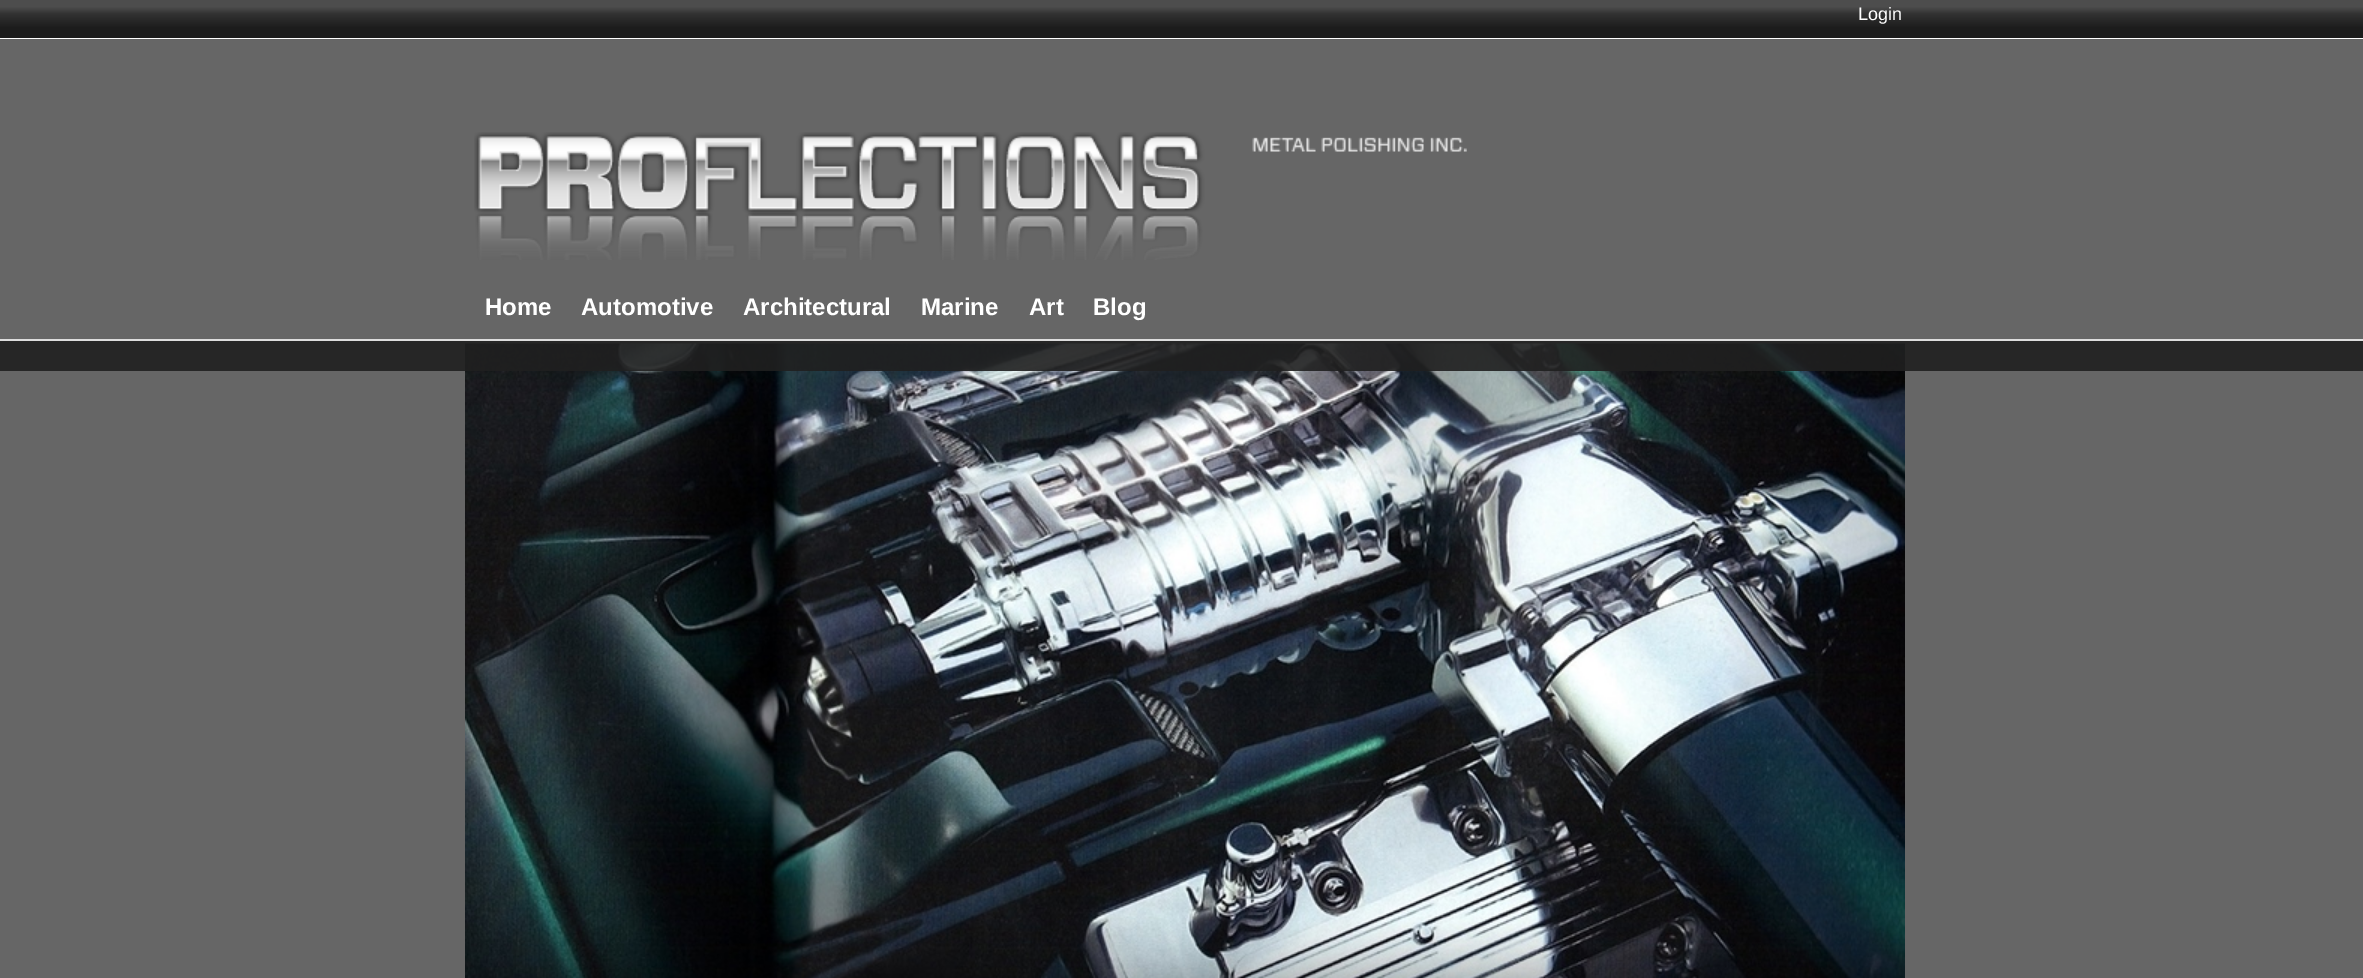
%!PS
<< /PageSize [2363 978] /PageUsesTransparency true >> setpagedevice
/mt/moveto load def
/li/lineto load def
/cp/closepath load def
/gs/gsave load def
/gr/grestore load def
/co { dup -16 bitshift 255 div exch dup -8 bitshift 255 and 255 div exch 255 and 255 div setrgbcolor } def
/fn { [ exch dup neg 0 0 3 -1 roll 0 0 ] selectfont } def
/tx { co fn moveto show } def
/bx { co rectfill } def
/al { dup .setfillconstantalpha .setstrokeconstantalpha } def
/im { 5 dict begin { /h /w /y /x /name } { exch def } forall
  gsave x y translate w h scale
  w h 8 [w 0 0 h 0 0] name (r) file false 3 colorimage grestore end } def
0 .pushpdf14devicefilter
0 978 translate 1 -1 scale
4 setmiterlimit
0 0 2363 978 16#FFFFFF bx
gs 0 0 mt 2363 0 li 2363 38 li 0 38 li cp clip newpath
<< /ShadingType 2 /ColorSpace /DeviceRGB /Coords [0 38 0 0] /Extend [true true] /Function << /FunctionType 3 /Domain [0 1] /Functions [<< /FunctionType 2 /Domain [0 1] /C0 [.11 .11 .11] /C1 [.11 .11 .11] /N 1 >> << /FunctionType 2 /Domain [0 1] /C0 [.11 .11 .11] /C1 [.2 .2 .2] /N 1 >> << /FunctionType 2 /Domain [0 1] /C0 [.2 .2 .2] /C1 [.302 .302 .302] /N 1 >> << /FunctionType 2 /Domain [0 1] /C0 [.302 .302 .302] /C1 [.302 .302 .302] /N 1 >>] /Bounds [.27 .64 .82] /Encode [0 1 0 1 0 1 0 1] >> >> shfill gr
0 39 2363 300 16#666666 bx
0 339 2363 2 16#DDDDDD bx
(media/1.raw) 474 132 993 128 im
0 341 2363 637 16#666666 bx
(media/2.raw) 465 343 1440 635 im
0.9 al
0 341 2363 30 16#1F1F1F bx
1 al
(Login) 1858 20 /LiberationSans-Regular 18 16#FFFFFF tx
(Home) 485 315 /LiberationSans-Bold 24 16#FFFFFF tx
(Automotive) 581 315 /LiberationSans-Bold 24 16#FFFFFF tx
(Architectural) 743 315 /LiberationSans-Bold 24 16#FFFFFF tx
(Marine) 921 315 /LiberationSans-Bold 24 16#FFFFFF tx
(Art) 1029 315 /LiberationSans-Bold 24 16#FFFFFF tx
(Blog) 1093 315 /LiberationSans-Bold 24 16#FFFFFF tx
.poppdf14devicefilter showpage
